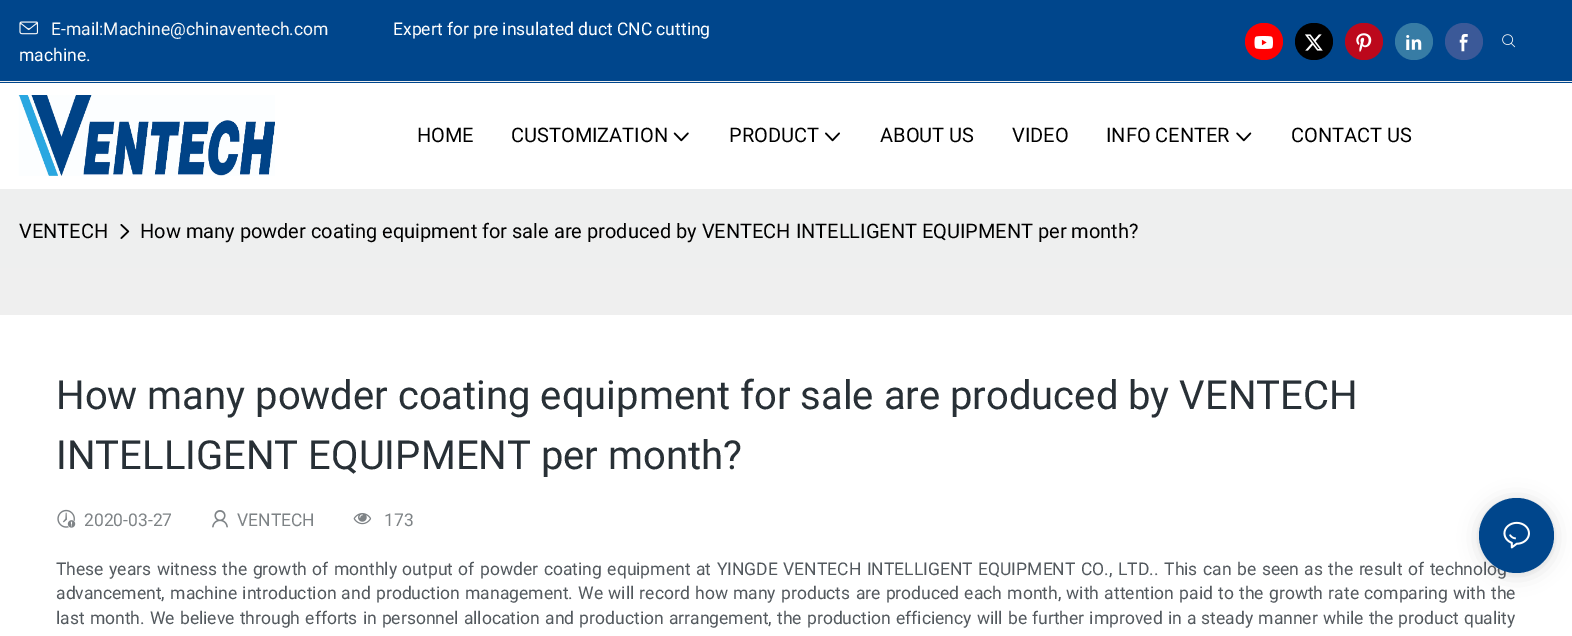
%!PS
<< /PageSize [1572 636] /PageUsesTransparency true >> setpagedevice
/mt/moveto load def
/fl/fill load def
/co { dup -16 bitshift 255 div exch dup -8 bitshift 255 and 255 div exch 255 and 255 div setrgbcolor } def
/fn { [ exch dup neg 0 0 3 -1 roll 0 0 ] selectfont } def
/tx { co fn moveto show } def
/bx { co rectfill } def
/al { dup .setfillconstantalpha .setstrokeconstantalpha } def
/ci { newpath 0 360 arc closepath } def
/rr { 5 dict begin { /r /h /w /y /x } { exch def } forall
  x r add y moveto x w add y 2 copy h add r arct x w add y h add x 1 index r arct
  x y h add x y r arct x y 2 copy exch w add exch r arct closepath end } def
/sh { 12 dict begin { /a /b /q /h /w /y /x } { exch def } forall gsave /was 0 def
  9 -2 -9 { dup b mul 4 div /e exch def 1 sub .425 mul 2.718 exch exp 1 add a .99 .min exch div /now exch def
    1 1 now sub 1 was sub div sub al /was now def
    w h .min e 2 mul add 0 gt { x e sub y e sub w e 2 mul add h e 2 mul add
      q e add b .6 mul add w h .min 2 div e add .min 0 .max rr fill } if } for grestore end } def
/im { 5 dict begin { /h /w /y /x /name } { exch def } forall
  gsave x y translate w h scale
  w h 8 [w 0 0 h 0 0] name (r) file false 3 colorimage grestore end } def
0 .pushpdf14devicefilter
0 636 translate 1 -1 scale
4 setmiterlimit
0 0 1572 636 16#FFFFFF bx
0 0 1572 83 16#00468C bx
0 81 1572 1 16#EEEEEE bx
(media/1.raw) 19 21 20 14 im
16#FF0000 co
1245 23 38 37 18.5 rr fl
(media/2.raw) 1254 36 19 13 im
16#000000 co
1295 23 38 37 18.5 rr fl
(media/3.raw) 1305 34 18 17 im
16#BC081C co
1345 23 38 37 18.5 rr fl
(media/4.raw) 1356 33 16 19 im
16#377CA5 co
1395 23 38 37 18.5 rr fl
(media/5.raw) 1406 35 16 15 im
16#3B5998 co
1445 23 38 37 18.5 rr fl
(media/6.raw) 1459 34 9 18 im
(media/7.raw) 1502 34 14 14 im
(media/8.raw) 18 95 257 81 im
(media/9.raw) 673 132 16 10 im
(media/10.raw) 825 132 15 10 im
(media/11.raw) 1236 132 16 10 im
0 189 1572 79 16#EEEFEF bx
(media/12.raw) 120 224 10 15 im
0 268 1572 47 16#EFEFEF bx
(media/13.raw) 57 509 19 19 im
(media/14.raw) 212 510 16 18 im
(media/15.raw) 353 513 19 12 im
16#000000 co
1479 500 75 75 37.5 10 .12 sh
1479 499 75 75 37.5 2.5 .06 sh
(E-mail:Machine@chinaventech.com) 51 35 /Roboto-Regular 17.5 16#F8F8F8 tx
(Expert for pre insulated duct CNC cutting) 393 35 /Roboto-Regular 17.5 16#FFFFFF tx
(machine.) 19 61 /Roboto-Regular 17.5 16#FFFFFF tx
(HOME) 417 142 /Roboto-Regular 20 16#000000 tx
(CUSTOMIZATION) 511 142 /Roboto-Regular 20 16#000000 tx
(PRODUCT) 729 142 /Roboto-Regular 20 16#000000 tx
(ABOUT US) 880 142 /Roboto-Regular 20 16#000000 tx
(VIDEO) 1012 142 /Roboto-Regular 20 16#000000 tx
(INFO CENTER) 1106 142 /Roboto-Regular 20 16#000000 tx
(CONTACT US) 1291 142 /Roboto-Regular 20 16#000000 tx
(VENTECH) 19 238 /Roboto-Regular 20 16#000000 tx
(How many powder coating equipment for sale are produced by VENTECH INTELLIGENT EQUIPMENT per month?) 140 238 /Roboto-Regular 20 16#000000 tx
(How many powder coating equipment for sale are produced by VENTECH) 56 409 /Roboto-Regular 40 16#283036 tx
(INTELLIGENT EQUIPMENT per month?) 56 469 /Roboto-Regular 40 16#283036 tx
(2020-03-27) 84 526 /Roboto-Regular 17.5 16#7E8386 tx
(VENTECH) 237 526 /Roboto-Regular 17.5 16#7E8386 tx
(173) 384 526 /Roboto-Regular 17.5 16#7E8386 tx
16#53595E co
56 575 mt 1.2 0 32 (These years witness the growth of monthly output of powder coating equipment at YINGDE VENTECH INTELLIGENT EQUIPMENT CO., LTD.. This can be seen as the result of technolog) widthshow
56 599 mt .95 0 32 (advancement, machine introduction and production management. We will record how many products are produced each month, with attention paid to the growth rate comparing with the) widthshow
56 624 mt .85 0 32 (last month. We believe through efforts in personnel allocation and production arrangement, the production efficiency will be further improved in a steady manner while the product quality) widthshow
16#00468C co
1516.5 535.5 37.5 ci fl
(media/16.raw) 1503 521 27 28 im
.poppdf14devicefilter showpage
